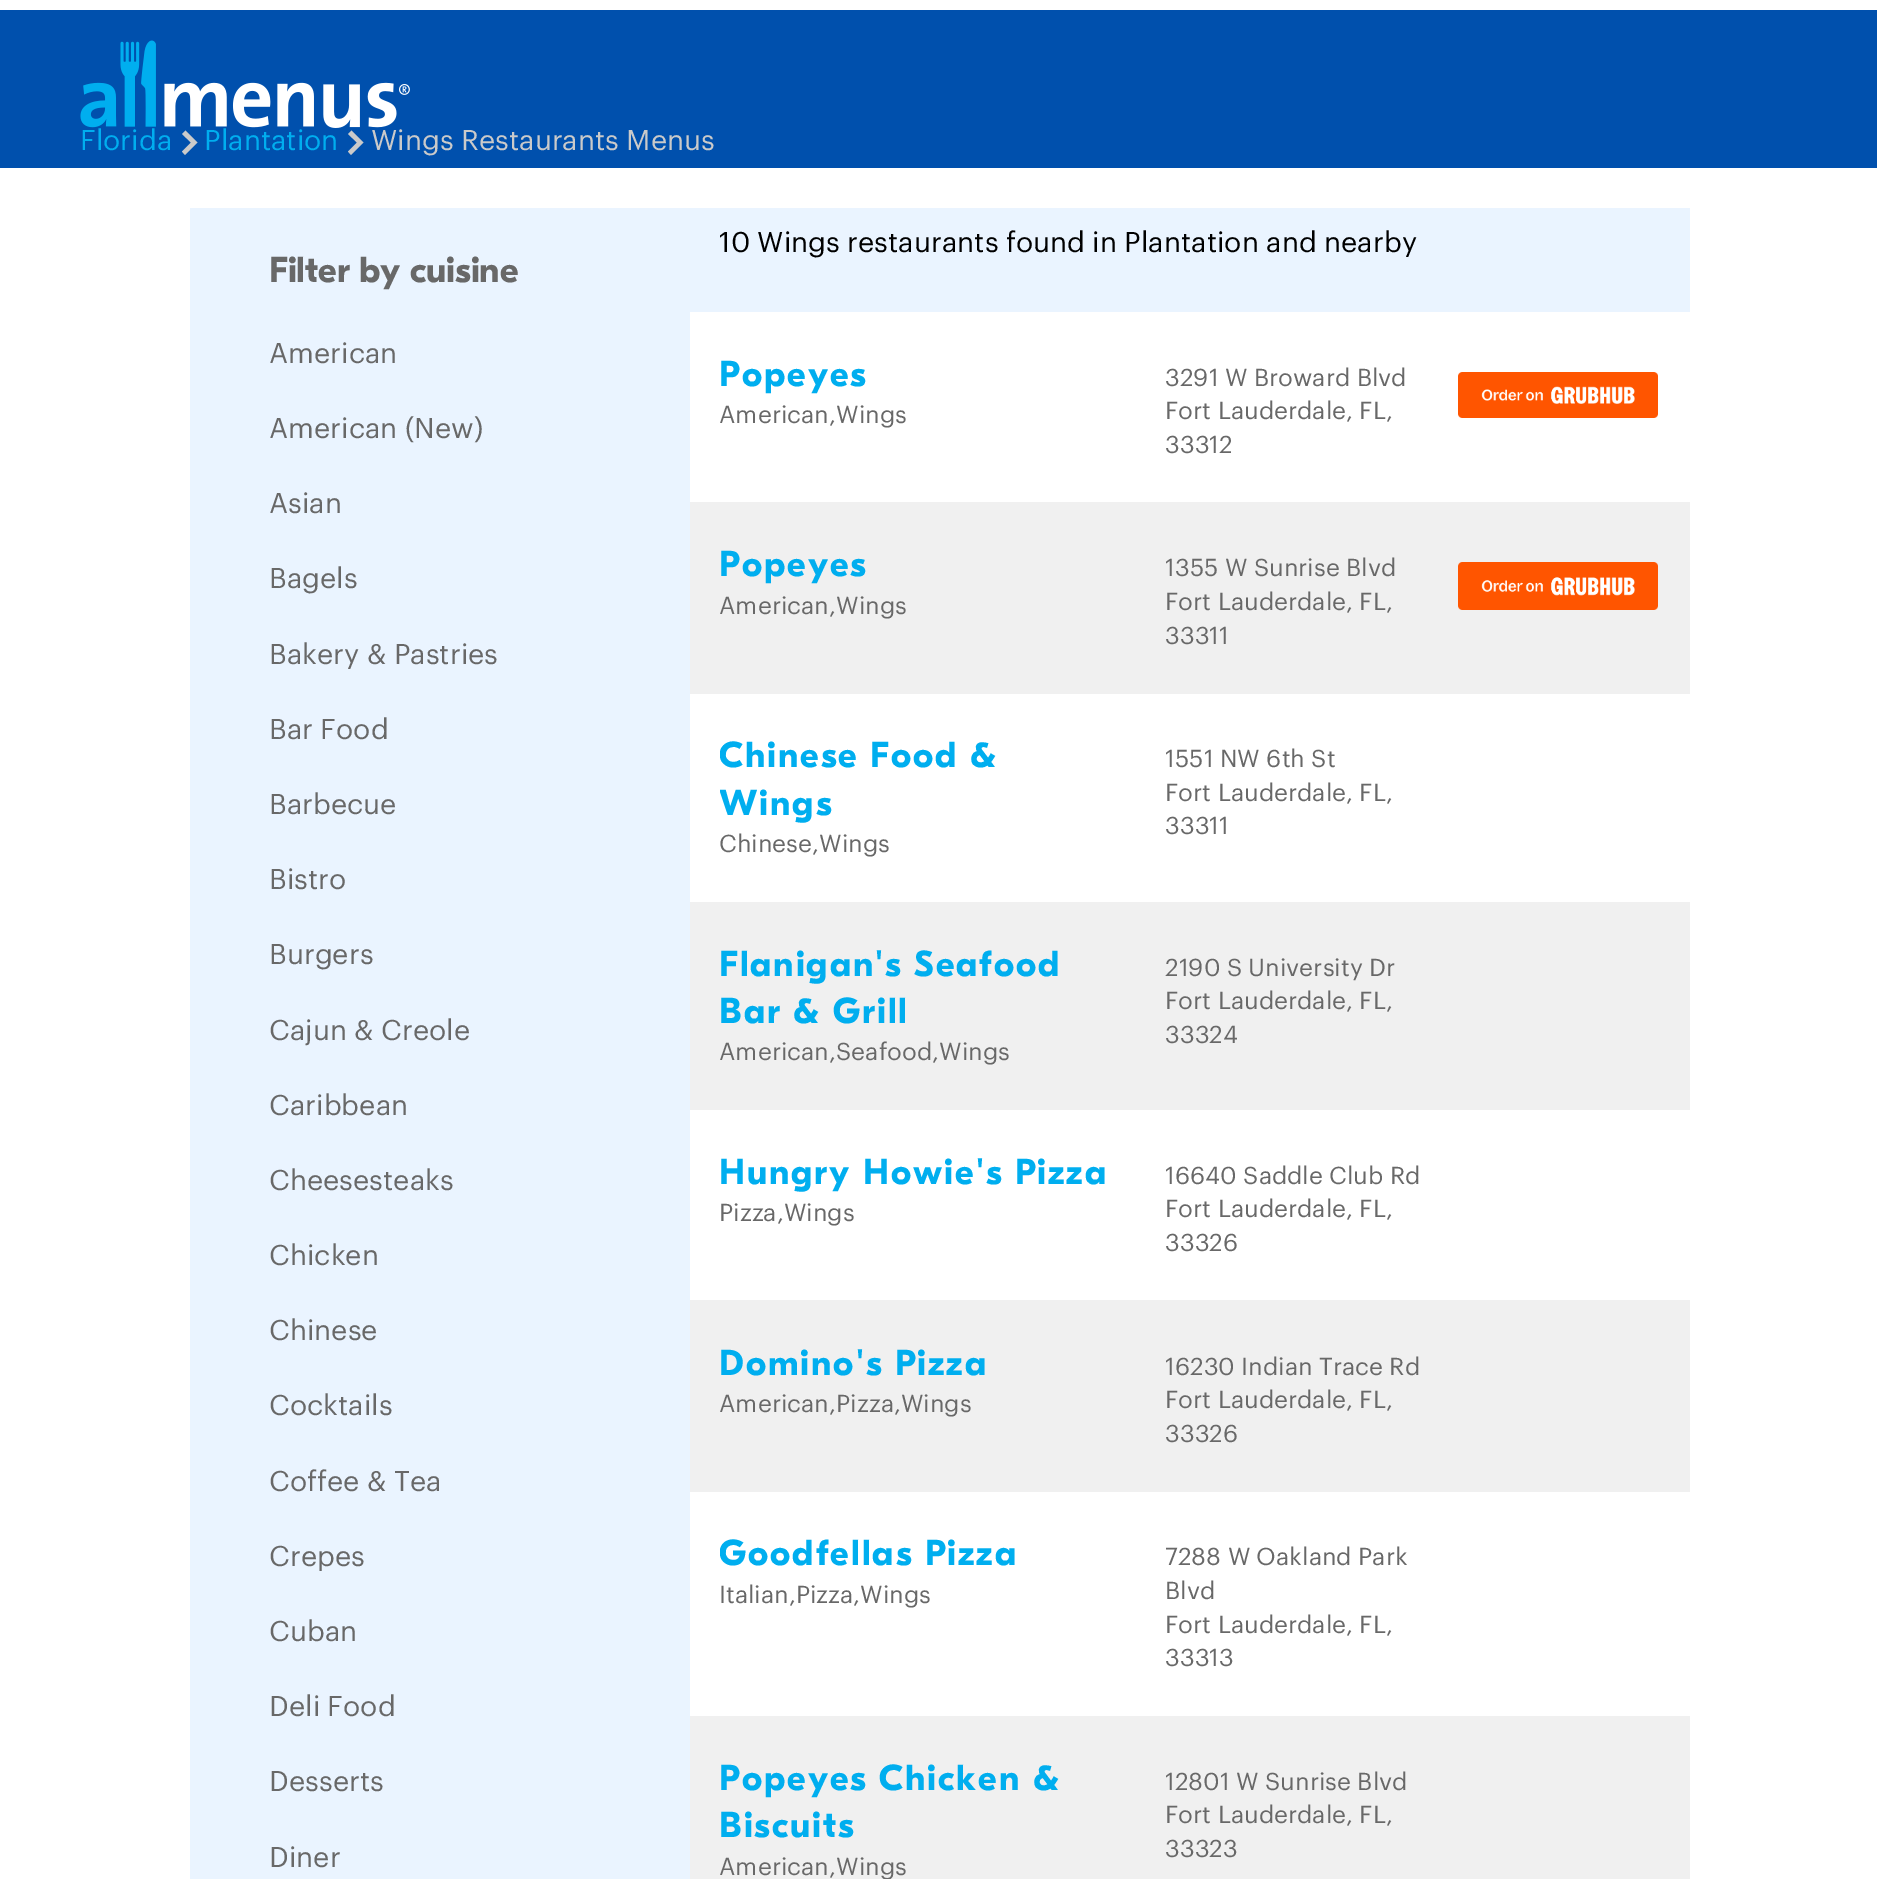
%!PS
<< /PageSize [1877 1879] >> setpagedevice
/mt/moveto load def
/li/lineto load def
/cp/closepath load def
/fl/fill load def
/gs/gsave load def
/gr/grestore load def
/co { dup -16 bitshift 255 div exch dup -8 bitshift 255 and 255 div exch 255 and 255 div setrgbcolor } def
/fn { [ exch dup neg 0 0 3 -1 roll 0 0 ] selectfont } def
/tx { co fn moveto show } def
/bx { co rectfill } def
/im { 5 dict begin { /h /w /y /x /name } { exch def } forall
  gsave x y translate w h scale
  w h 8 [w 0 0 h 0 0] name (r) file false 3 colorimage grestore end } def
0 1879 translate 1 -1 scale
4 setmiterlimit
0 0 1877 1879 16#FFFFFF bx
0 10 1877 158 16#0050AD bx
(media/1.raw) 80 40 330 88 im
16#CACACA co
182 151.5 mt 185 155 li 197.5 142.5 li 185.5 130.5 li 182 134 li 191 142.5 li cp fl
348 151.5 mt 351 155 li 363.5 142.5 li 351.5 130.5 li 348 134 li 357 142.5 li cp fl
190 208 500 1671 16#EAF4FF bx
690 208 1000 104 16#EAF4FF bx
(media/2.raw) 1458 372 200 46 im
690 502 1000 192 16#F0F0F0 bx
(media/3.raw) 1458 562 200 48 im
690 902 1000 208 16#F0F0F0 bx
690 1300 1000 192 16#F0F0F0 bx
690 1716 1000 163 16#F0F0F0 bx
(Florida) 80 150 /Graphik-Regular 28 16#00AEEF tx
(Plantation) 204 150 /Graphik-Regular 28 16#00AEEF tx
(Wings Restaurants Menus) 371 150 /Graphik-Regular 28 16#CACACA tx
(Filter by cuisine) 269 282 /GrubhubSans-Bold 36 16#686868 tx
(American) 269 363 /Graphik-Regular 28 16#686868 tx
(American \(New\)) 269 438 /Graphik-Regular 28 16#686868 tx
(Asian) 269 513 /Graphik-Regular 28 16#686868 tx
(Bagels) 269 588 /Graphik-Regular 28 16#686868 tx
(Bakery & Pastries) 269 664 /Graphik-Regular 28 16#686868 tx
(Bar Food) 269 739 /Graphik-Regular 28 16#686868 tx
(Barbecue) 269 814 /Graphik-Regular 28 16#686868 tx
(Bistro) 269 889 /Graphik-Regular 28 16#686868 tx
(Burgers) 269 964 /Graphik-Regular 28 16#686868 tx
(Cajun & Creole) 269 1040 /Graphik-Regular 28 16#686868 tx
(Caribbean) 269 1115 /Graphik-Regular 28 16#686868 tx
(Cheesesteaks) 269 1190 /Graphik-Regular 28 16#686868 tx
(Chicken) 269 1265 /Graphik-Regular 28 16#686868 tx
(Chinese) 269 1340 /Graphik-Regular 28 16#686868 tx
(Cocktails) 269 1415 /Graphik-Regular 28 16#686868 tx
(Coffee & Tea) 269 1491 /Graphik-Regular 28 16#686868 tx
(Crepes) 269 1566 /Graphik-Regular 28 16#686868 tx
(Cuban) 269 1641 /Graphik-Regular 28 16#686868 tx
(Deli Food) 269 1716 /Graphik-Regular 28 16#686868 tx
(Desserts) 269 1791 /Graphik-Regular 28 16#686868 tx
(Diner) 269 1867 /Graphik-Regular 28 16#686868 tx
(10 Wings restaurants found in Plantation and nearby) 719 252 /Graphik-Regular 28 16#000000 tx
/GrubhubSans-Bold 36 fn
16#00AEEF co
719 386 mt 2 0 (Popeyes) ashow
(American,Wings) 719 423 /Graphik-Regular 24 16#686868 tx
(3291 W Broward Blvd) 1165 386 /Graphik-Regular 24 16#686868 tx
(Fort Lauderdale, FL,) 1165 419 /Graphik-Regular 24 16#686868 tx
(33312) 1165 453 /Graphik-Regular 24 16#686868 tx
/GrubhubSans-Bold 36 fn
16#00AEEF co
719 576 mt 2 0 (Popeyes) ashow
(American,Wings) 719 614 /Graphik-Regular 24 16#686868 tx
(1355 W Sunrise Blvd) 1165 576 /Graphik-Regular 24 16#686868 tx
(Fort Lauderdale, FL,) 1165 610 /Graphik-Regular 24 16#686868 tx
(33311) 1165 644 /Graphik-Regular 24 16#686868 tx
gs
720 734 390 94 rectclip
/GrubhubSans-Bold 36 fn
16#00AEEF co
719 767 mt 2 0 (Chinese Food &) ashow
719 815 mt 2 0 (Wings) ashow
gr
(Chinese,Wings) 719 852 /Graphik-Regular 24 16#686868 tx
(1551 NW 6th St) 1165 767 /Graphik-Regular 24 16#686868 tx
(Fort Lauderdale, FL,) 1165 801 /Graphik-Regular 24 16#686868 tx
(33311) 1165 834 /Graphik-Regular 24 16#686868 tx
/GrubhubSans-Bold 36 fn
16#00AEEF co
719 976 mt 2 0 (Flanigan's Seafood) ashow
719 1023 mt 2 0 (Bar & Grill) ashow
(American,Seafood,Wings) 719 1060 /Graphik-Regular 24 16#686868 tx
(2190 S University Dr) 1165 976 /Graphik-Regular 24 16#686868 tx
(Fort Lauderdale, FL,) 1165 1009 /Graphik-Regular 24 16#686868 tx
(33324) 1165 1043 /Graphik-Regular 24 16#686868 tx
/GrubhubSans-Bold 36 fn
16#00AEEF co
719 1184 mt 2 0 (Hungry Howie's Pizza) ashow
(Pizza,Wings) 719 1221 /Graphik-Regular 24 16#686868 tx
(16640 Saddle Club Rd) 1165 1184 /Graphik-Regular 24 16#686868 tx
(Fort Lauderdale, FL,) 1165 1217 /Graphik-Regular 24 16#686868 tx
(33326) 1165 1251 /Graphik-Regular 24 16#686868 tx
/GrubhubSans-Bold 36 fn
16#00AEEF co
719 1375 mt 2 0 (Domino's Pizza) ashow
(American,Pizza,Wings) 719 1412 /Graphik-Regular 24 16#686868 tx
(16230 Indian Trace Rd) 1165 1375 /Graphik-Regular 24 16#686868 tx
(Fort Lauderdale, FL,) 1165 1408 /Graphik-Regular 24 16#686868 tx
(33326) 1165 1442 /Graphik-Regular 24 16#686868 tx
gs
720 1532 390 46 rectclip
/GrubhubSans-Bold 36 fn
16#00AEEF co
719 1565 mt 2 0 (Goodfellas Pizza) ashow
gr
(Italian,Pizza,Wings) 719 1603 /Graphik-Regular 24 16#686868 tx
(7288 W Oakland Park) 1165 1565 /Graphik-Regular 24 16#686868 tx
(Blvd) 1165 1599 /Graphik-Regular 24 16#686868 tx
(Fort Lauderdale, FL,) 1165 1633 /Graphik-Regular 24 16#686868 tx
(33313) 1165 1666 /Graphik-Regular 24 16#686868 tx
/GrubhubSans-Bold 36 fn
16#00AEEF co
719 1790 mt 2 0 (Popeyes Chicken &) ashow
719 1837 mt 2 0 (Biscuits) ashow
(American,Wings) 719 1875 /Graphik-Regular 24 16#686868 tx
(12801 W Sunrise Blvd) 1165 1790 /Graphik-Regular 24 16#686868 tx
(Fort Lauderdale, FL,) 1165 1823 /Graphik-Regular 24 16#686868 tx
(33323) 1165 1857 /Graphik-Regular 24 16#686868 tx
showpage
